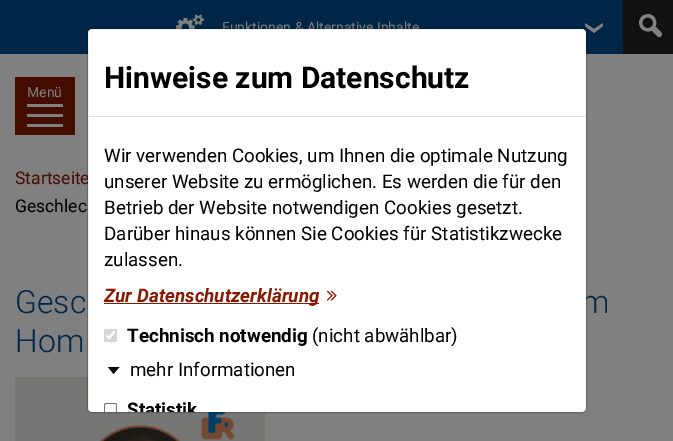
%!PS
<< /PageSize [673 441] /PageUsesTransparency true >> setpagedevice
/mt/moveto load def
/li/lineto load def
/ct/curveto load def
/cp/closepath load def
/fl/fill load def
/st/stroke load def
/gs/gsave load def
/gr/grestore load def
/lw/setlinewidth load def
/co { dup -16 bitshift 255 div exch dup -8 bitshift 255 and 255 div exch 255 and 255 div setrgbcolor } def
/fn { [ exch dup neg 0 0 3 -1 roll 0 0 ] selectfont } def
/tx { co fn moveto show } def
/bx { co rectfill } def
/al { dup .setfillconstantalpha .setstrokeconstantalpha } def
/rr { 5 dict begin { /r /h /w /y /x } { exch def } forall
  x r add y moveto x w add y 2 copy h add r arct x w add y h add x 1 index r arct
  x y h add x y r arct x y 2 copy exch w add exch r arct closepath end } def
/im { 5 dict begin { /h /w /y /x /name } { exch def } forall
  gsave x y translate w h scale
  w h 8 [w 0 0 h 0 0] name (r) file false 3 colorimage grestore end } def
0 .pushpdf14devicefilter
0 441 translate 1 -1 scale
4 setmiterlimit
0 0 673 441 16#808080 bx
0 0 623 54 16#002647 bx
(media/1.raw) 176 14 28 15 im
(media/2.raw) 585 23 18 10 im
623 0 50 54 16#111111 bx
(media/3.raw) 639 14 23 24 im
(media/5.raw) 15 377 250 64 im
15 77 60 58 16#450C00 bx
27 114 36 3 16#808080 bx
27 104 36 3 16#808080 bx
27 124 36 3 16#808080 bx
(Funktionen & Alternative Inhalte) 222 32 /Roboto-Regular 14 16#808080 tx
(Startseite) 15 184 /Roboto-Regular 17.5 16#450C00 tx
(Geschlec) 15 212 /Roboto-Regular 17.5 16#000000 tx
(Gesc) 15 313 /Roboto-Light 32 16#002647 tx
(m) 581 313 /Roboto-Light 32 16#002647 tx
16#FFFFFF co
88 29 498 383 4 rr fl
0.2 al
16#000000 co
87.5 28.5 499 384 4.5 rr st
1 al
113.5 374 mt 108 367 li 119.5 367 li cp fl
(media/4.raw) 327 290 10 11 im
gs
88 29 498 383 4 rr clip newpath
(Statistik) 127 416 /Roboto-Bold 18.8 16#000000 tx
gr
16#767676 co
106 403 mt 105 403 104 404 104 405 ct 104 412 li 105 412 li 105 405 li 105 404.5 105.5 404 106 404 ct 115 404 li 115.5 404 116 404.5 116 405 ct 116 412 li 117 412 li 117 405 li 117 404 116 403 115 403 ct cp fl
(mehr Informationen) 130 376 /Roboto-Regular 18.8 16#000000 tx
(\(nicht abwählbar\)) 312 342 /Roboto-Regular 18.8 16#000000 tx
(Technisch notwendig) 127 342 /Roboto-Bold 18.8 16#000000 tx
16#D6D6D6 co
104 329 13 13 2 rr fl
16#FFFFFF co
2.1 lw
106.5 335.5 mt 109 338 li 114.5 331.5 li st
104 303 215 1 16#8A1800 bx
(Zur Datenschutzerklärung) 104 302 /Roboto-BoldItalic 18.8 16#8A1800 tx
(zulassen.) 104 266 /Roboto-Regular 18.8 16#000000 tx
(Darüber hinaus können Sie Cookies für Statistikzwecke) 104 240 /Roboto-Regular 18.8 16#000000 tx
(Betrieb der Website notwendigen Cookies gesetzt.) 104 214 /Roboto-Regular 18.8 16#000000 tx
(unserer Website zu ermöglichen. Es werden die für den) 104 188 /Roboto-Regular 18.8 16#000000 tx
(Wir verwenden Cookies, um Ihnen die optimale Nutzung) 104 162 /Roboto-Regular 18.8 16#000000 tx
(Hinweise zum Datenschutz) 104 88 /Roboto-Bold 30 16#000000 tx
88 116 498 1 16#DEE2E6 bx
(Hom) 15 352 /Roboto-Light 32 16#002647 tx
(Menü) 27 97 /Roboto-Regular 14 16#808080 tx
.poppdf14devicefilter showpage
